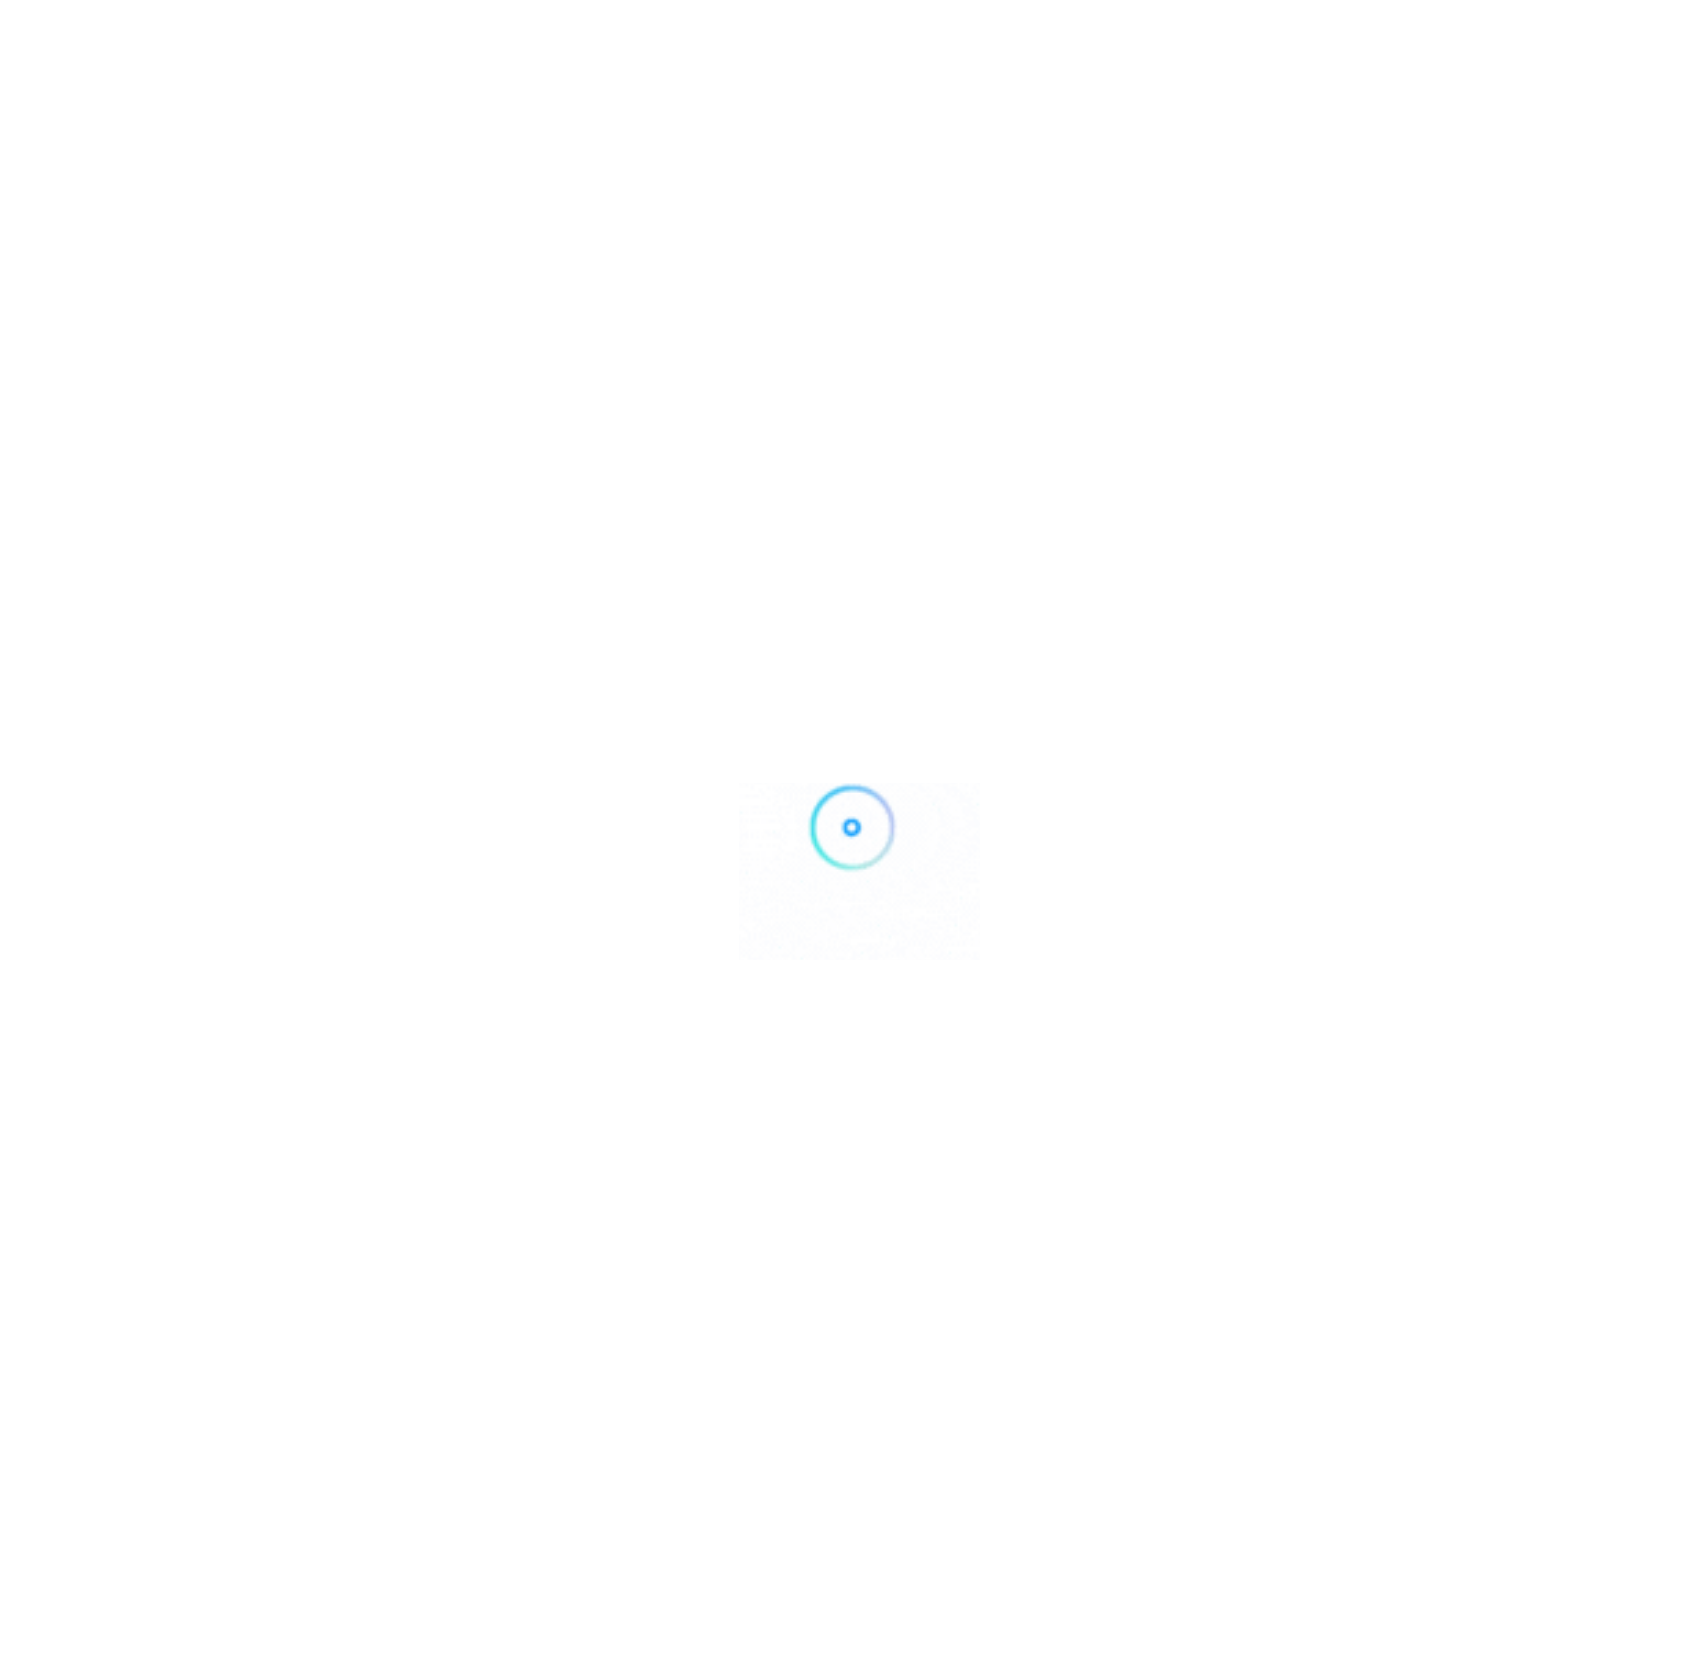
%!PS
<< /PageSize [1705 1653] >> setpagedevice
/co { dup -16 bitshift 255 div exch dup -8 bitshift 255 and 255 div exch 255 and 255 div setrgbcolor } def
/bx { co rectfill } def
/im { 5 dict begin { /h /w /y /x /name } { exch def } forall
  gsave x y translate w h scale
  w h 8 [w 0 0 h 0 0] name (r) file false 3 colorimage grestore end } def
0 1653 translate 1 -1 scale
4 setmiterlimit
0 0 1705 1653 16#FFFFFF bx
(media/1.raw) 739 783 241 177 im
showpage
